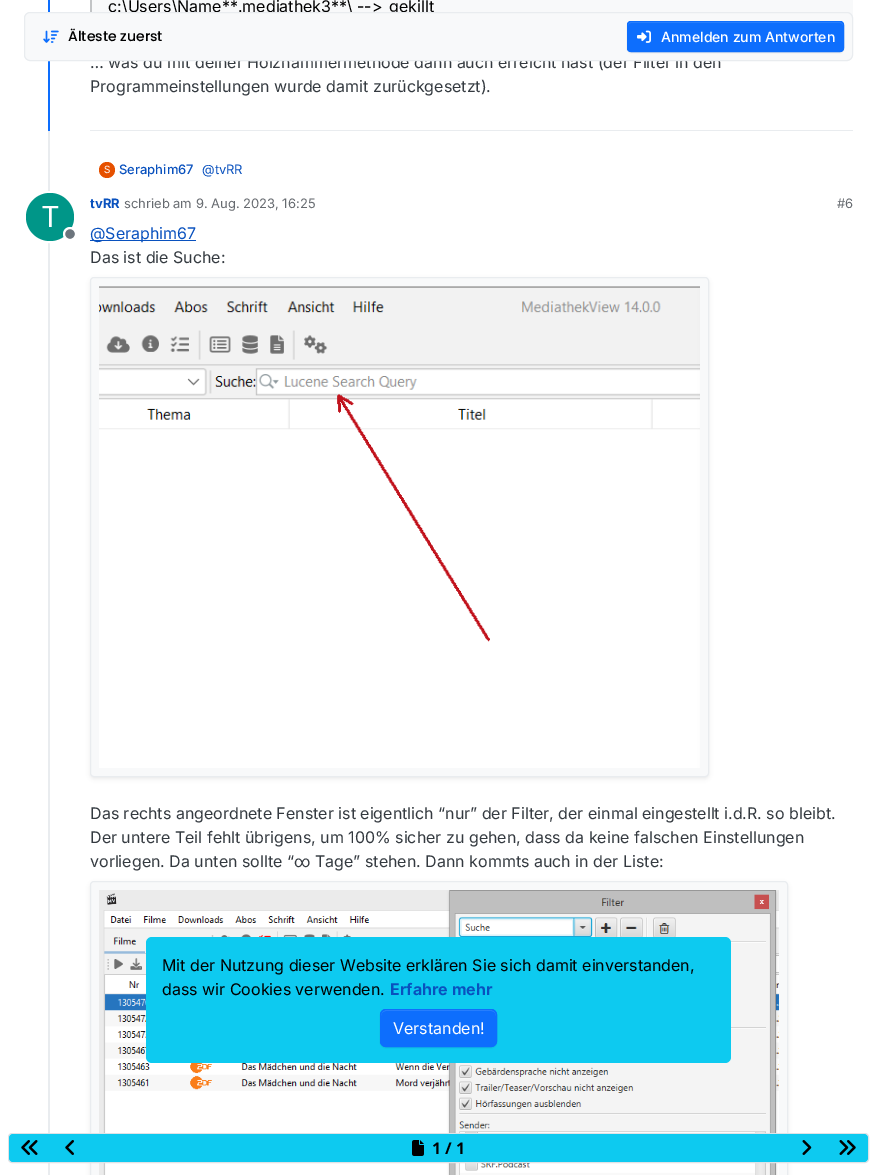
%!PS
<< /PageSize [877 1175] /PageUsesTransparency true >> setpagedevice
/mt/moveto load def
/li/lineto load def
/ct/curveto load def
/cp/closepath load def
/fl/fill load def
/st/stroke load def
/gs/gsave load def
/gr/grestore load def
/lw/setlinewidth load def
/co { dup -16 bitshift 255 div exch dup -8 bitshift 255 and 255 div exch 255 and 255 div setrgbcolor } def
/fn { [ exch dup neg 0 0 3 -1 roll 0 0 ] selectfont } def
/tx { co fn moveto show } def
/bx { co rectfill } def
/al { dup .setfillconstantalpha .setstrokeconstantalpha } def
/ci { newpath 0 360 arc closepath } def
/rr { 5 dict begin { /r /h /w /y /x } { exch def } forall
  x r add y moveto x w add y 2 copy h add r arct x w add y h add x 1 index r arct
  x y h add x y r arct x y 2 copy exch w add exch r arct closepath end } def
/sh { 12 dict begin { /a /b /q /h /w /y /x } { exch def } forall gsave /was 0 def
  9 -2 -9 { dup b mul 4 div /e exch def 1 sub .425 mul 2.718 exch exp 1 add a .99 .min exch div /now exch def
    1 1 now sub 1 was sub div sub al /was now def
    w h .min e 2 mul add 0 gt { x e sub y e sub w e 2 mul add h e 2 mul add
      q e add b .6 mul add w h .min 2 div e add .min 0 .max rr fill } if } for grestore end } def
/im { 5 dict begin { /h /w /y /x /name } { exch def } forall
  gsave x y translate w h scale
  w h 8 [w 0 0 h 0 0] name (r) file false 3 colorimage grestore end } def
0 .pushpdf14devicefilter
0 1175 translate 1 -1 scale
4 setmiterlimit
0 0 877 1175 16#FFFFFF bx
48 0 2 131 16#0D6EFD bx
92 0 761 18 16#F8F9FA bx
90 0 2 12 16#C2C4C6 bx
90 130 763 1 16#E9ECEF bx
48 131 2 1044 16#E9ECEF bx
16#E65100 co
107 170 8 ci fl
16#FFFFFF co
2 lw
50 217 25 ci st
16#009688 co
50 217 24 ci fl
16#6C757D co
70 234 6 ci gs fl gr
16#FFFFFF co
st
90 240 106 1 16#0951BE bx
16#000000 co
90 279 619 500 4 2 .07 sh
16#F8F9FA co
90.5 277.5 618 499 3.5 rr gs fl gr
16#E9ECEF co
1 lw
st
(media/1.raw) 99 286 601 482 im
16#000000 co
90 883 698 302 4 2 .07 sh
16#F8F9FA co
90.5 881.5 697 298 3.5 rr gs fl gr
16#E9ECEF co
st
(media/2.raw) 99 890 680 285 im
16#0DCAF0 co
146 937 585 126 6 rr fl
16#000000 co
380 1010 117 38 6 .5 .07 sh
16#0D6EFD co
380 1009 117 38 6 rr fl
16#3184FD co
386 1011 mt 491 1011 li 494 1011 496 1013 496 1016 ct 496 1006 478 1010 474 1010 ct 404 1010 li 399 1010 381 1006 381 1016 ct 381 1013 383 1011 386 1011 ct cp fl
16#0D6EFD co
380.5 1009.5 116 37 5.5 rr st
16#F8F9FA co
8.5 1133.5 860 29 3.5 rr gs fl gr
16#DEE2E6 co
st
16#0DCAF0 co
9 1134 859 28 4 rr fl
(media/5.raw) 21 1140 17 15 im
(media/6.raw) 65 1140 9 15 im
(media/7.raw) 412 1140 12 16 im
(media/8.raw) 802 1140 10 15 im
(media/9.raw) 839 1140 17 15 im
(c:\\Users\\Name**.mediathek3**\\) 108 12 /Inter-Regular 16 16#000000 tx
357 12 mt 4 0 32 (-->) widthshow
389 12 mt 4 0 32 (gekillt) widthshow
(… was du mit deiner Holzhammermethode dann auch erreicht hast \(der Filter in den) 90 68 /Inter-Regular 16 16#343A40 tx
(Programmeinstellungen wurde damit zurückgesetzt\).) 90 92 /Inter-Regular 16 16#343A40 tx
(S) 104 173 /Inter-Regular 10 16#FFFFFF tx
(Seraphim67) 119 174 /Inter-Medium 13 16#0951BE tx
(@tvRR) 202 174 /Inter-Regular 13 16#0951BE tx
(T) 41 227 /Inter-Regular 29 16#FFFFFF tx
(tvRR) 90 208 /Inter-Bold 13 16#0951BE tx
(schrieb am 9. Aug. 2023, 16:25) 124 208 /Inter-Regular 13 16#676B70 tx
(#6) 837 208 /Inter-Regular 13 16#676B70 tx
(@Seraphim67) 90 239 /Inter-Regular 16 16#0951BE tx
(Das ist die Suche:) 90 263 /Inter-Regular 16 16#343A40 tx
(Das rechts angeordnete Fenster ist eigentlich “nur” der Filter, der einmal eingestellt i.d.R. so bleibt.) 90 819 /Inter-Regular 16 16#343A40 tx
(Der untere Teil fehlt übrigens, um 100% sicher zu gehen, dass da keine falschen Einstellungen) 90 843 /Inter-Regular 16 16#343A40 tx
(vorliegen. Da unten sollte “) 90 867 /Inter-Regular 16 16#343A40 tx
(∞) 294 867 /Roboto-Regular 16 16#343A40 tx
(Tage” stehen. Dann kommts auch in der Liste:) 315 867 /Inter-Regular 16 16#343A40 tx
16#F8F9FA co
24.5 12.5 828 48 5.5 rr gs fl gr
16#E9ECEF co
st
(media/3.raw) 43 30 16 13 im
(Älteste zuerst) 68 41 /Poppins-Medium 14 16#000000 tx
627 22 217 31 4 .5 .07 sh
16#0D6EFD co
627 21 217 31 4 rr fl
16#3184FD co
631 23 mt 840 23 li 842 23 843 24 843 26 ct 843 25 li 843 23 842 22 840 22 ct 631 22 li 629 22 628 23 628 25 ct 628 26 li 628 24 629 23 631 23 ct cp fl
16#0D6EFD co
627.5 21.5 216 30 3.5 rr st
(media/4.raw) 637 30 14 13 im
(Anmelden zum Antworten) 661 42 /Inter-Medium 14 16#FFFFFF tx
(Mit der Nutzung dieser Website erklären Sie sich damit einverstanden,) 162 971 /Inter-Regular 16 16#000000 tx
(dass wir Cookies verwenden.) 162 995 /Inter-Regular 16 16#000000 tx
(Erfahre mehr) 390 995 /Inter-Bold 16 16#0951BE tx
(Verstanden!) 393 1034 /Inter-Regular 16 16#FFFFFF tx
(1 / 1) 432 1154 /NotoSans-Bold 16 16#000000 tx
.poppdf14devicefilter showpage
